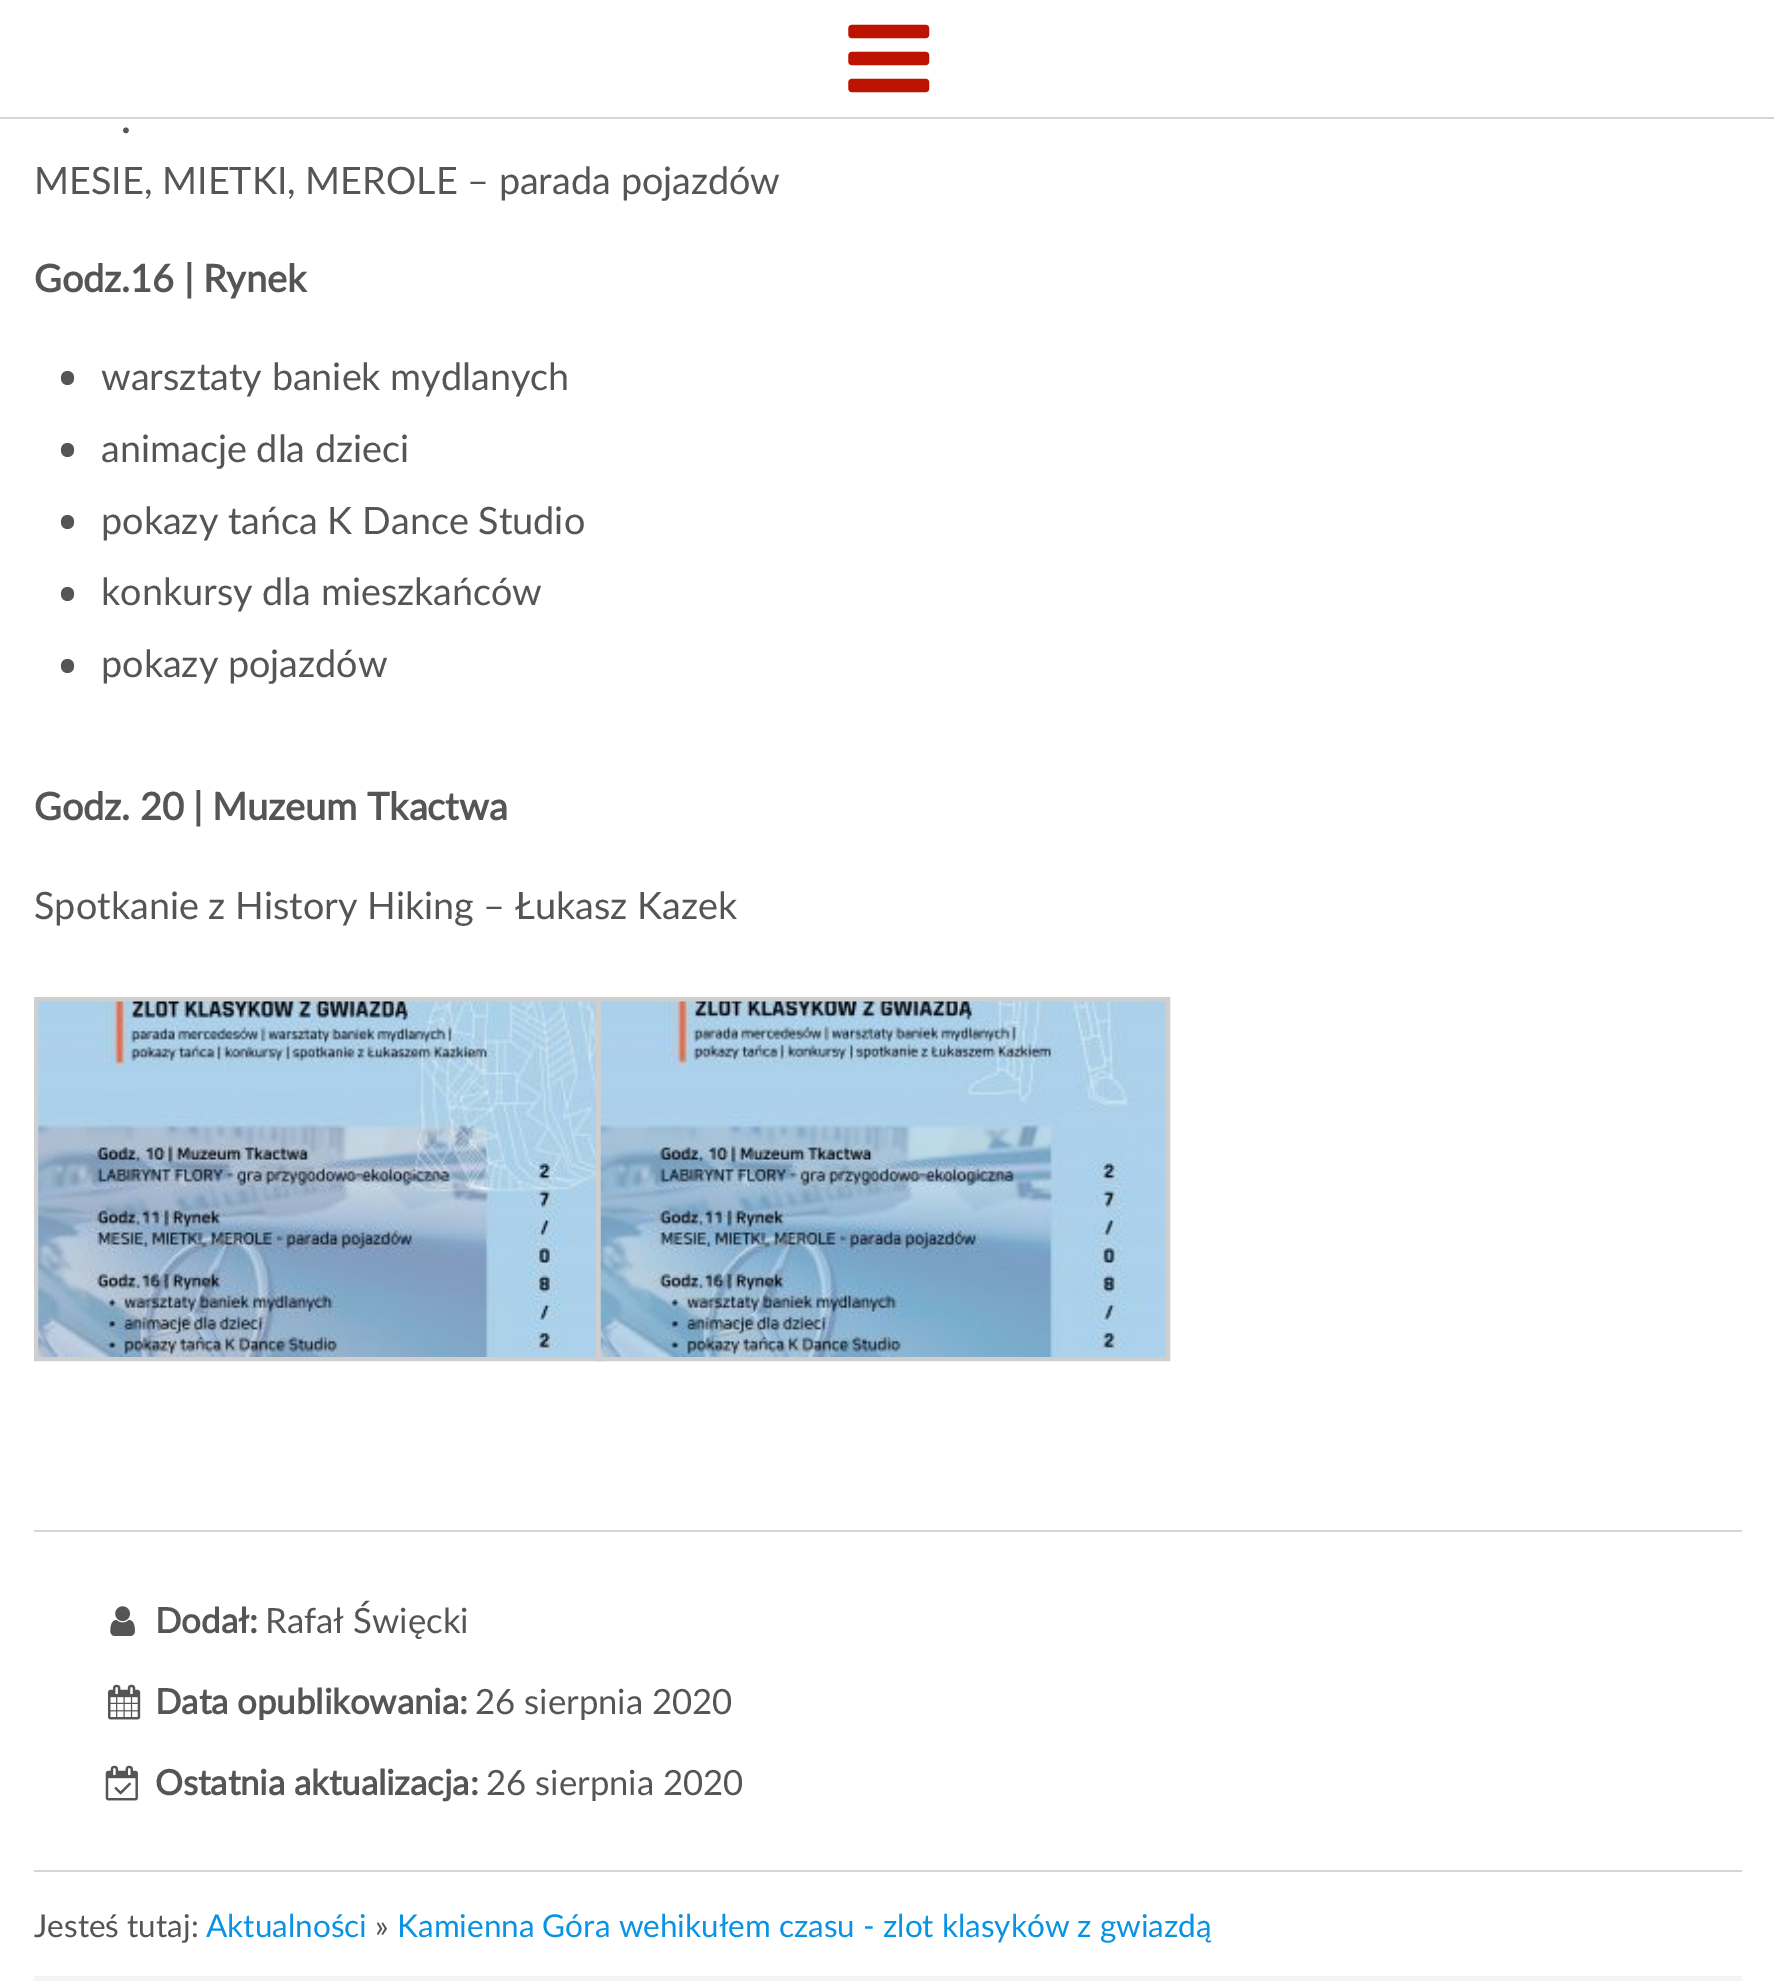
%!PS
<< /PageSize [1774 1981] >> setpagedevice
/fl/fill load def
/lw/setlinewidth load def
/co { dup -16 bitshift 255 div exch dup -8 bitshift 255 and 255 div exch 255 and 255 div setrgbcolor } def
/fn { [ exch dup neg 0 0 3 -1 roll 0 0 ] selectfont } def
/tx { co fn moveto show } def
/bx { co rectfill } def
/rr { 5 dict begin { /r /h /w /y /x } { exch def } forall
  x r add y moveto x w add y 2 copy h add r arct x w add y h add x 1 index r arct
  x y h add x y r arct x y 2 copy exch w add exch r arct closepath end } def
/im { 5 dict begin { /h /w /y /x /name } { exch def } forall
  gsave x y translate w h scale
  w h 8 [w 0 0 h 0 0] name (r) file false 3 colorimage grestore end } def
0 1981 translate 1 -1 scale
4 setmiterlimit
0 0 1774 1981 16#FFFFFF bx
0 117 1774 2 16#D5D5D5 bx
(media/1.raw) 848 24 82 69 im
16#555555 co
61 371 13 14 6.5 rr fl
61 443 13 14 6.5 rr fl
61 515 13 14 6.5 rr fl
61 587 13 14 6.5 rr fl
61 659 13 14 6.5 rr fl
16#CFCFCF co
5 lw
36.5 999.5 566 359 rectstroke
(media/2.raw) 38 1001 558 356 im
598.5 999.5 569 359 rectstroke
(media/3.raw) 600 1001 566 356 im
34 1530 1708 2 16#D5D5D5 bx
34 1870 1708 2 16#D5D5D5 bx
(media/4.raw) 110 1606 25 30 im
(media/5.raw) 108 1684 33 36 im
(media/6.raw) 105 1765 33 36 im
34 1976 1708 5 16#F5F5F5 bx
(.) 121 133 /Lato-Bold 37.75 16#555555 tx
(MESIE, MIETKI, MEROLE – parada pojazdów) 34 194 /Lato-Regular 37.75 16#555555 tx
(Godz.16 | Rynek) 34 292 /Lato-Bold 37.75 16#555555 tx
(warsztaty baniek mydlanych) 101 390 /Lato-Regular 37.75 16#555555 tx
(animacje dla dzieci) 101 462 /Lato-Regular 37.75 16#555555 tx
(pokazy tańca K Dance Studio) 101 534 /Lato-Regular 37.75 16#555555 tx
(konkursy dla mieszkańców) 101 605 /Lato-Regular 37.75 16#555555 tx
(pokazy pojazdów) 101 677 /Lato-Regular 37.75 16#555555 tx
(Godz. 20 | Muzeum Tkactwa) 34 820 /Lato-Bold 37.75 16#555555 tx
(Spotkanie z History Hiking – Łukasz Kazek) 34 919 /Lato-Regular 37.75 16#555555 tx
(Dodał:) 155 1633 /Lato-Bold 34.75 16#555555 tx
(Rafał Święcki) 265 1633 /Lato-Regular 34.75 16#555555 tx
(Data opublikowania:) 155 1714 /Lato-Bold 34.75 16#555555 tx
(26 sierpnia 2020) 475 1714 /Lato-Regular 34.75 16#555555 tx
(Ostatnia aktualizacja:) 155 1795 /Lato-Bold 34.75 16#555555 tx
(26 sierpnia 2020) 486 1795 /Lato-Regular 34.75 16#555555 tx
(Jesteś tutaj:) 34 1937 /Lato-Regular 31.5 16#555555 tx
(Aktualności) 206 1937 /Lato-Regular 31.5 16#0A93E3 tx
(») 375 1937 /Lato-Regular 31.5 16#555555 tx
(Kamienna Góra wehikułem czasu - zlot klasyków z gwiazdą) 397 1937 /Lato-Regular 31.5 16#0A93E3 tx
showpage
